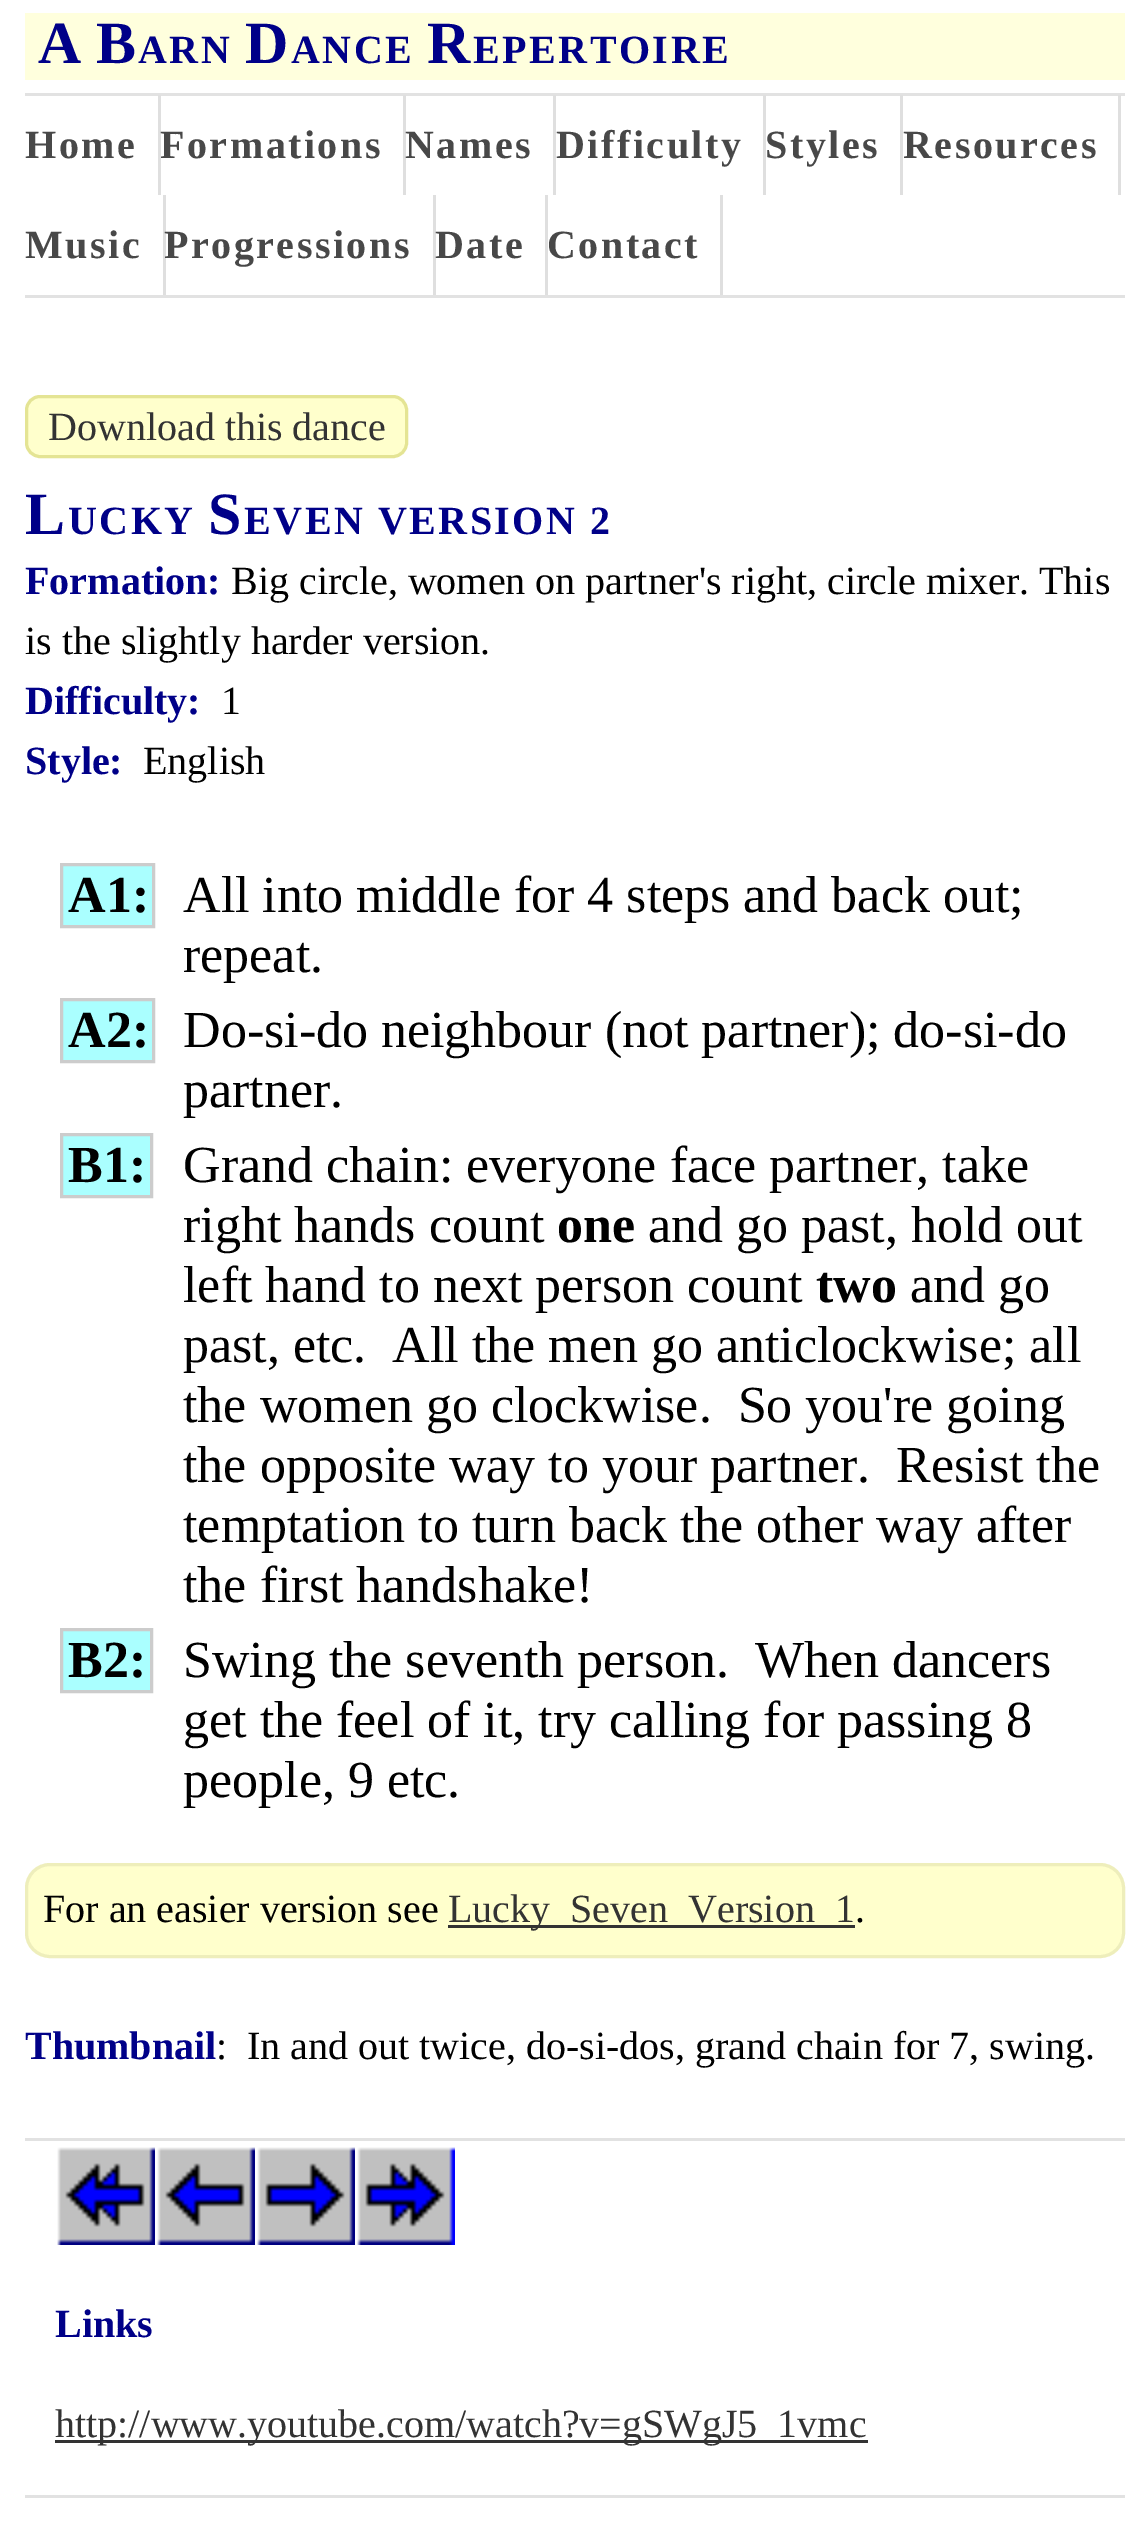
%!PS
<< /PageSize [1148 2524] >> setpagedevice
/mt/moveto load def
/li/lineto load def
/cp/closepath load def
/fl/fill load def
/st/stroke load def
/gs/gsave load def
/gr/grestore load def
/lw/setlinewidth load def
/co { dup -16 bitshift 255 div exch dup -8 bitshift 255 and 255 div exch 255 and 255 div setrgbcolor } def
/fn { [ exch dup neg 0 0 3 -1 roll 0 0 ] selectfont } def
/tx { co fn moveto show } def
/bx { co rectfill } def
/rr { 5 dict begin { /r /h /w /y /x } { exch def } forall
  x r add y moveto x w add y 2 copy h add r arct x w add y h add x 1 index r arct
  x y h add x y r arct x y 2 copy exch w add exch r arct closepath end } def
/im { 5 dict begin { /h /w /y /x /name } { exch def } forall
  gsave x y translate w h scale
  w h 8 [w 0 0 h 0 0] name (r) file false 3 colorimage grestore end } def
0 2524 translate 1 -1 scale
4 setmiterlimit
0 0 1148 2524 16#FFFFFF bx
25 13 1100 67 16#FFFFDD bx
25 93 1100 3 16#E2E2E2 bx
25 295 1100 3 16#E2E2E2 bx
158 95 3 100 16#DFDFDF bx
403 95 3 100 16#DFDFDF bx
553 95 3 100 16#DFDFDF bx
763 95 3 100 16#DFDFDF bx
900 95 3 100 16#DFDFDF bx
1118 95 3 100 16#DFDFDF bx
163 195 3 100 16#DFDFDF bx
433 195 3 100 16#DFDFDF bx
545 195 3 100 16#DFDFDF bx
720 195 3 100 16#DFDFDF bx
16#FFFFCC co
26.5 396.5 380 60 13.5 rr gs fl gr
16#E4E494 co
3 lw
st
16#AAFFFF co
61.5 864.5 mt 153.5 864.5 li 153.5 926.5 li 61.5 926.5 li cp gs fl gr
16#CCCCCC co
st
16#AAFFFF co
61.5 999.5 mt 153.5 999.5 li 153.5 1061.5 li 61.5 1061.5 li cp gs fl gr
16#CCCCCC co
st
16#AAFFFF co
61.5 1134.5 mt 151.5 1134.5 li 151.5 1196.5 li 61.5 1196.5 li cp gs fl gr
16#CCCCCC co
st
16#AAFFFF co
61.5 1629.5 mt 151.5 1629.5 li 151.5 1691.5 li 61.5 1691.5 li cp gs fl gr
16#CCCCCC co
st
16#FFFFCC co
26.5 1864.5 1097 92 23.5 rr gs fl gr
16#EEEEBB co
st
448 1925 407 3 16#333333 bx
25 2138 1100 3 16#E2E2E2 bx
25 2495 1100 3 16#E2E2E2 bx
(media/1.raw) 57 2147 98 98 im
(media/2.raw) 157 2147 98 98 im
(media/3.raw) 257 2147 98 98 im
(media/4.raw) 357 2147 98 98 im
55 2440 813 3 16#333333 bx
/LiberationSerif-Bold 60 fn
16#000088 co
38 63 mt 2.5 0 (A) ashow
96 63 mt 2.5 0 (B) ashow
/LiberationSerif-Bold 40 fn
138 63 mt 2.5 0 (ARN) ashow
/LiberationSerif-Bold 60 fn
245 63 mt 2.5 0 (D) ashow
/LiberationSerif-Bold 40 fn
291 63 mt 2.5 0 (ANCE) ashow
/LiberationSerif-Bold 60 fn
427 63 mt 2.5 0 (R) ashow
/LiberationSerif-Bold 40 fn
473 63 mt 2.5 0 (EPERTOIRE) ashow
16#484848 co
25 158 mt 2.5 0 (Home) ashow
160 158 mt 2.5 0 (Formations) ashow
405 158 mt 2.5 0 (Names) ashow
556 158 mt 2.5 0 (Difficulty) ashow
765 158 mt 2.5 0 (Styles) ashow
903 158 mt 2.5 0 (Resources) ashow
25 258 mt 2.5 0 (Music) ashow
164 258 mt 2.5 0 (Progressions) ashow
435 258 mt 2.5 0 (Date) ashow
547 258 mt 2.5 0 (Contact) ashow
(Download this dance) 48 440 /LiberationSerif-Regular 40 16#333333 tx
/LiberationSerif-Bold 60 fn
16#000088 co
25 534 mt 2.5 0 (L) ashow
/LiberationSerif-Bold 40 fn
68 534 mt 2.5 0 (UCKY) ashow
/LiberationSerif-Bold 60 fn
208 534 mt 2.5 0 (S) ashow
/LiberationSerif-Bold 40 fn
244 534 mt 2.5 0 (EVEN VERSION 2) ashow
(Formation:) 25 594 /LiberationSerif-Bold 40 16#000088 tx
(Big circle, women on partner's right, circle mixer. This) 231 594 /LiberationSerif-Regular 40 16#000000 tx
(is the slightly harder version.) 25 654 /LiberationSerif-Regular 40 16#000000 tx
(Difficulty:) 25 714 /LiberationSerif-Bold 40 16#000088 tx
(1) 221 714 /LiberationSerif-Regular 40 16#000000 tx
(Style:) 25 774 /LiberationSerif-Bold 40 16#000088 tx
(English) 143 774 /LiberationSerif-Regular 40 16#000000 tx
(A1:) 68 912 /LiberationSerif-Bold 52 16#000000 tx
(All into middle for 4 steps and back out;) 183 912 /LiberationSerif-Regular 52 16#000000 tx
(repeat.) 183 972 /LiberationSerif-Regular 52 16#000000 tx
(A2:) 68 1047 /LiberationSerif-Bold 52 16#000000 tx
(Do-si-do neighbour \(not partner\); do-si-do) 183 1047 /LiberationSerif-Regular 52 16#000000 tx
(partner.) 183 1107 /LiberationSerif-Regular 52 16#000000 tx
(B1:) 68 1182 /LiberationSerif-Bold 52 16#000000 tx
(Grand chain: everyone face partner, take) 183 1182 /LiberationSerif-Regular 52 16#000000 tx
(right hands count) 183 1242 /LiberationSerif-Regular 52 16#000000 tx
(one) 557 1242 /LiberationSerif-Bold 52 16#000000 tx
(and go past, hold out) 648 1242 /LiberationSerif-Regular 52 16#000000 tx
(left hand to next person count) 183 1302 /LiberationSerif-Regular 52 16#000000 tx
(two) 816 1302 /LiberationSerif-Bold 52 16#000000 tx
(and go) 910 1302 /LiberationSerif-Regular 52 16#000000 tx
(past, etc.  All the men go anticlockwise; all) 183 1362 /LiberationSerif-Regular 52 16#000000 tx
(the women go clockwise.  So you're going) 183 1422 /LiberationSerif-Regular 52 16#000000 tx
(the opposite way to your partner.  Resist the) 183 1482 /LiberationSerif-Regular 52 16#000000 tx
(temptation to turn back the other way after) 183 1542 /LiberationSerif-Regular 52 16#000000 tx
(the first handshake!) 183 1602 /LiberationSerif-Regular 52 16#000000 tx
(B2:) 68 1677 /LiberationSerif-Bold 52 16#000000 tx
(Swing the seventh person.  When dancers) 183 1677 /LiberationSerif-Regular 52 16#000000 tx
(get the feel of it, try calling for passing 8) 183 1737 /LiberationSerif-Regular 52 16#000000 tx
(people, 9 etc.) 183 1797 /LiberationSerif-Regular 52 16#000000 tx
(For an easier version see) 43 1922 /LiberationSerif-Regular 40 16#000000 tx
(Lucky_Seven_Version_1) 448 1922 /LiberationSerif-Regular 40 16#333333 tx
(.) 855 1922 /LiberationSerif-Regular 40 16#000000 tx
(Thumbnail) 25 2059 /LiberationSerif-Bold 40 16#000088 tx
(:  In and out twice, do-si-dos, grand chain for 7, swing.) 216 2059 /LiberationSerif-Regular 40 16#000000 tx
(Links) 55 2337 /LiberationSerif-Bold 40 16#000088 tx
(http://www.youtube.com/watch?v=gSWgJ5_1vmc) 55 2437 /LiberationSerif-Regular 40 16#333333 tx
showpage
